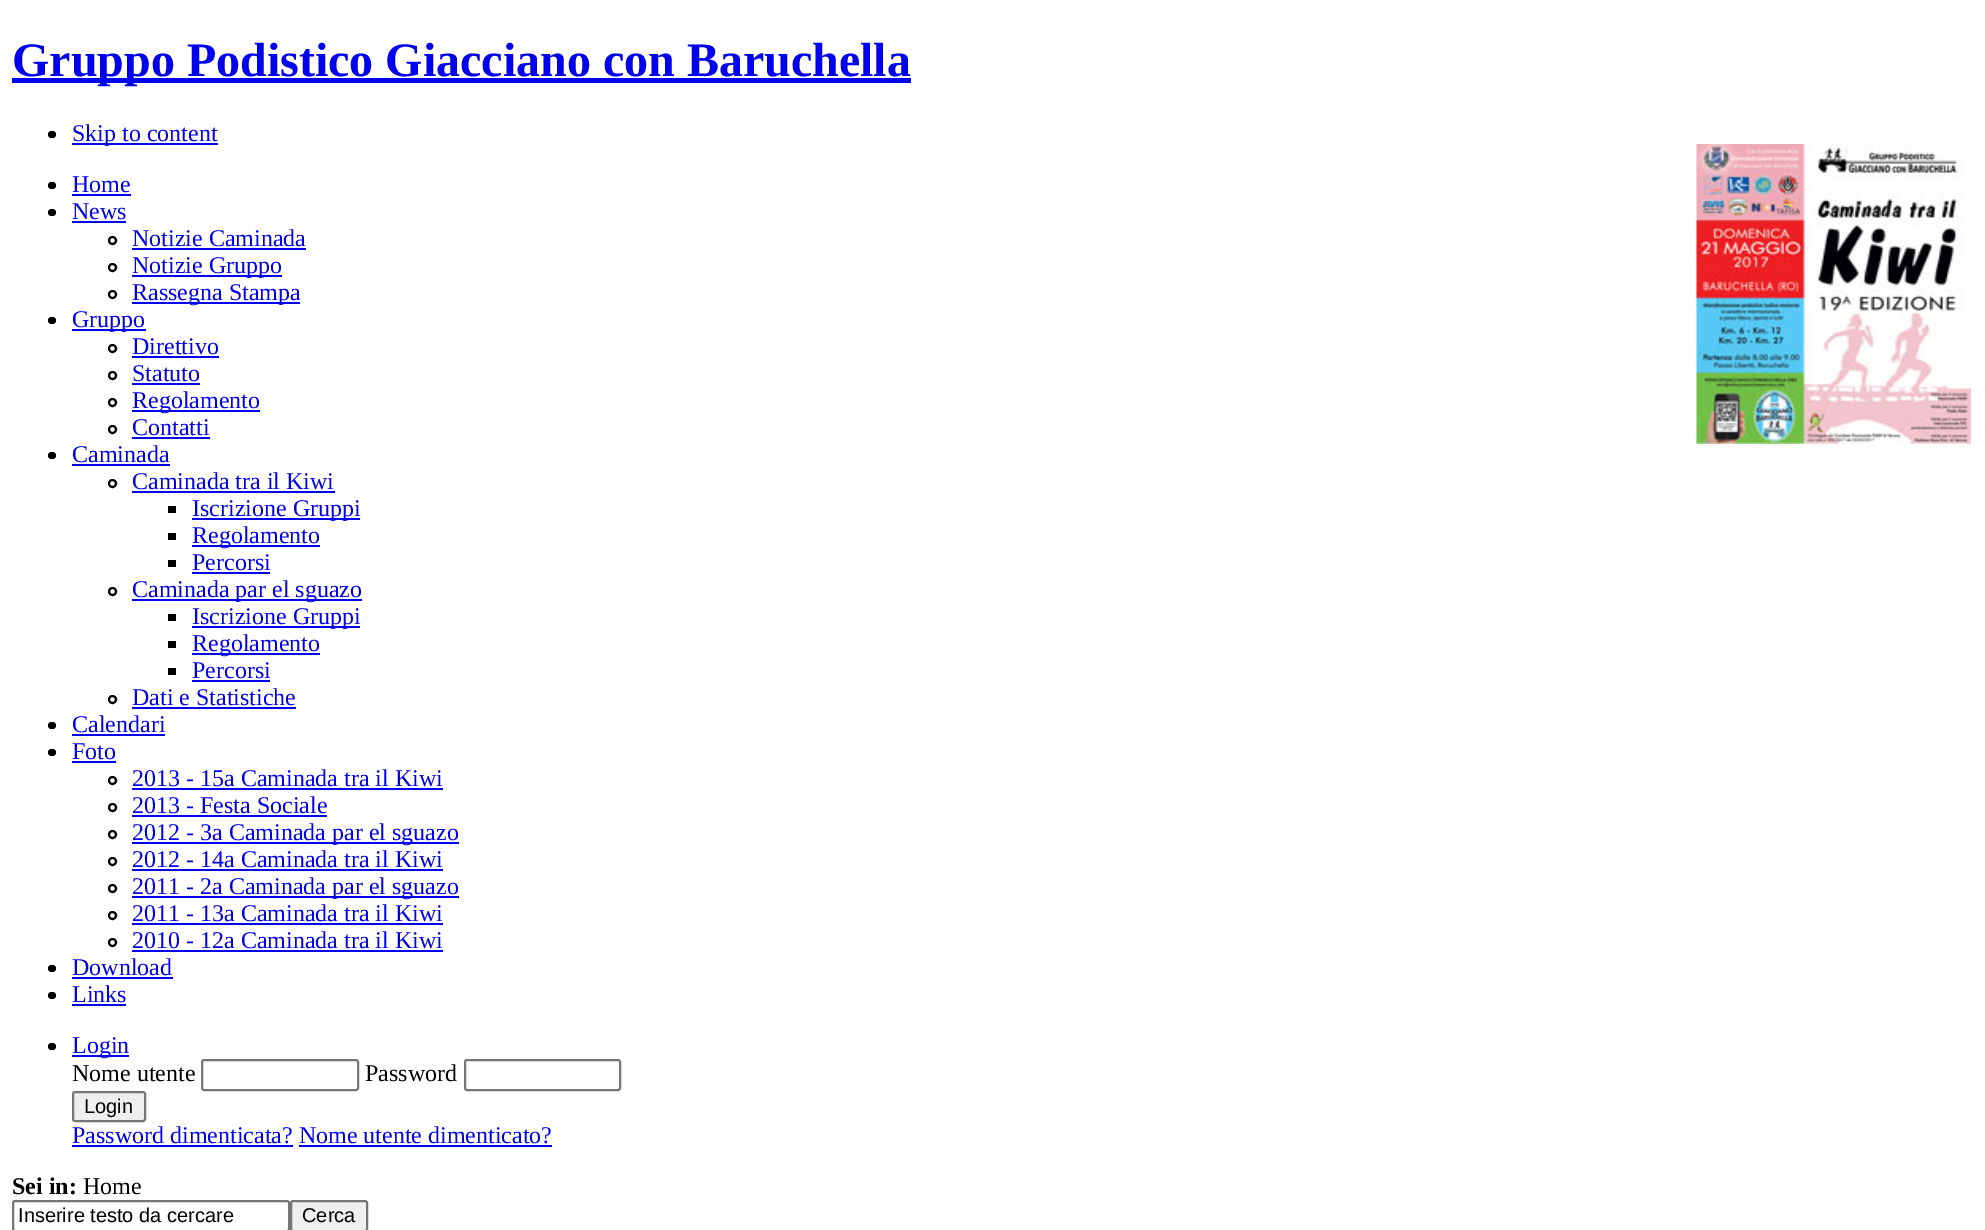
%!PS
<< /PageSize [1985 1230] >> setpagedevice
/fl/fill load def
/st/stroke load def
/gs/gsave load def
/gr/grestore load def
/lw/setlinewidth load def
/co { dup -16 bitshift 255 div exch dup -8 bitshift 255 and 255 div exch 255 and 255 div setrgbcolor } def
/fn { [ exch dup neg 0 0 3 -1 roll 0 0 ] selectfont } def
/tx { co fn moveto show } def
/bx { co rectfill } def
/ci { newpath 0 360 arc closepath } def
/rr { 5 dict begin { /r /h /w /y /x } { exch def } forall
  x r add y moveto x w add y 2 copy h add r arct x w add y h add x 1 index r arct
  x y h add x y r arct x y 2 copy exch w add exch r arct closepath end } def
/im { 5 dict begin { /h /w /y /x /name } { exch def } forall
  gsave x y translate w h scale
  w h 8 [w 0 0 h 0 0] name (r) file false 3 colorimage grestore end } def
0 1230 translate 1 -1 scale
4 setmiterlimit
0 0 1985 1230 16#FFFFFF bx
12 78 899 5 16#0000EE bx
(media/1.raw) 1696 144 275 300 im
16#000000 co
48 131 8 7 3.5 rr fl
72 143 146 2 16#0000EE bx
16#000000 co
48 182 8 7 3.5 rr fl
72 194 59 2 16#0000EE bx
16#000000 co
48 209 8 7 3.5 rr fl
72 221 54 2 16#0000EE bx
16#000000 co
2 lw
112.5 240.5 3.5 ci st
132 248 174 2 16#0000EE bx
16#000000 co
112.5 267.5 3.5 ci st
132 275 150 2 16#0000EE bx
16#000000 co
112.5 294.5 3.5 ci st
132 302 168 2 16#0000EE bx
16#000000 co
48 317 8 7 3.5 rr fl
72 329 74 2 16#0000EE bx
16#000000 co
112.5 348.5 3.5 ci st
132 356 87 2 16#0000EE bx
16#000000 co
112.5 375.5 3.5 ci st
132 383 68 2 16#0000EE bx
16#000000 co
112.5 402.5 3.5 ci st
132 410 128 2 16#0000EE bx
16#000000 co
112.5 429.5 3.5 ci st
132 437 78 2 16#0000EE bx
16#000000 co
48 452 8 7 3.5 rr fl
72 464 98 2 16#0000EE bx
16#000000 co
112.5 483.5 3.5 ci st
132 491 203 2 16#0000EE bx
168 506 8 7 16#000000 bx
192 518 168 2 16#0000EE bx
168 533 8 7 16#000000 bx
192 545 128 2 16#0000EE bx
168 560 8 7 16#000000 bx
192 572 78 2 16#0000EE bx
16#000000 co
112.5 591.5 3.5 ci st
132 599 230 2 16#0000EE bx
168 614 8 7 16#000000 bx
192 626 168 2 16#0000EE bx
168 641 8 7 16#000000 bx
192 653 128 2 16#0000EE bx
168 668 8 7 16#000000 bx
192 680 78 2 16#0000EE bx
16#000000 co
112.5 699.5 3.5 ci st
132 707 164 2 16#0000EE bx
16#000000 co
48 722 8 7 3.5 rr fl
72 734 93 2 16#0000EE bx
16#000000 co
48 749 8 7 3.5 rr fl
72 761 44 2 16#0000EE bx
16#000000 co
112.5 780.5 3.5 ci st
132 788 311 2 16#0000EE bx
16#000000 co
112.5 807.5 3.5 ci st
132 815 195 2 16#0000EE bx
16#000000 co
112.5 834.5 3.5 ci st
132 842 327 2 16#0000EE bx
16#000000 co
112.5 861.5 3.5 ci st
132 869 311 2 16#0000EE bx
16#000000 co
112.5 888.5 3.5 ci st
132 896 327 2 16#0000EE bx
16#000000 co
112.5 915.5 3.5 ci st
132 923 311 2 16#0000EE bx
16#000000 co
112.5 942.5 3.5 ci st
132 950 311 2 16#0000EE bx
16#000000 co
48 965 8 7 3.5 rr fl
72 977 101 2 16#0000EE bx
16#000000 co
48 992 8 7 3.5 rr fl
72 1004 54 2 16#0000EE bx
16#000000 co
48 1043 8 7 3.5 rr fl
72 1055 57 2 16#0000EE bx
16#767676 co
202 1060 156 30 2 rr st
465 1060 155 30 2 rr st
16#EFEFEF co
73 1092 72 29 2 rr gs fl gr
16#767676 co
st
72 1145 221 2 16#0000EE bx
299 1145 253 2 16#0000EE bx
16#767676 co
13 1201 276 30 2 rr st
16#EFEFEF co
291 1201 76 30 2 rr gs fl gr
16#767676 co
st
(Gruppo Podistico Giacciano con Baruchella) 12 76 /LiberationSerif-Bold 48 16#0000EE tx
(Skip to content) 72 141 /LiberationSerif-Regular 24 16#0000EE tx
(Home) 72 192 /LiberationSerif-Regular 24 16#0000EE tx
(News) 72 219 /LiberationSerif-Regular 24 16#0000EE tx
(Notizie Caminada) 132 246 /LiberationSerif-Regular 24 16#0000EE tx
(Notizie Gruppo) 132 273 /LiberationSerif-Regular 24 16#0000EE tx
(Rassegna Stampa) 132 300 /LiberationSerif-Regular 24 16#0000EE tx
(Gruppo) 72 327 /LiberationSerif-Regular 24 16#0000EE tx
(Direttivo) 132 354 /LiberationSerif-Regular 24 16#0000EE tx
(Statuto) 132 381 /LiberationSerif-Regular 24 16#0000EE tx
(Regolamento) 132 408 /LiberationSerif-Regular 24 16#0000EE tx
(Contatti) 132 435 /LiberationSerif-Regular 24 16#0000EE tx
(Caminada) 72 462 /LiberationSerif-Regular 24 16#0000EE tx
(Caminada tra il Kiwi) 132 489 /LiberationSerif-Regular 24 16#0000EE tx
(Iscrizione Gruppi) 192 516 /LiberationSerif-Regular 24 16#0000EE tx
(Regolamento) 192 543 /LiberationSerif-Regular 24 16#0000EE tx
(Percorsi) 192 570 /LiberationSerif-Regular 24 16#0000EE tx
(Caminada par el sguazo) 132 597 /LiberationSerif-Regular 24 16#0000EE tx
(Iscrizione Gruppi) 192 624 /LiberationSerif-Regular 24 16#0000EE tx
(Regolamento) 192 651 /LiberationSerif-Regular 24 16#0000EE tx
(Percorsi) 192 678 /LiberationSerif-Regular 24 16#0000EE tx
(Dati e Statistiche) 132 705 /LiberationSerif-Regular 24 16#0000EE tx
(Calendari) 72 732 /LiberationSerif-Regular 24 16#0000EE tx
(Foto) 72 759 /LiberationSerif-Regular 24 16#0000EE tx
(2013 - 15a Caminada tra il Kiwi) 132 786 /LiberationSerif-Regular 24 16#0000EE tx
(2013 - Festa Sociale) 132 813 /LiberationSerif-Regular 24 16#0000EE tx
(2012 - 3a Caminada par el sguazo) 132 840 /LiberationSerif-Regular 24 16#0000EE tx
(2012 - 14a Caminada tra il Kiwi) 132 867 /LiberationSerif-Regular 24 16#0000EE tx
(2011 - 2a Caminada par el sguazo) 132 894 /LiberationSerif-Regular 24 16#0000EE tx
(2011 - 13a Caminada tra il Kiwi) 132 921 /LiberationSerif-Regular 24 16#0000EE tx
(2010 - 12a Caminada tra il Kiwi) 132 948 /LiberationSerif-Regular 24 16#0000EE tx
(Download) 72 975 /LiberationSerif-Regular 24 16#0000EE tx
(Links) 72 1002 /LiberationSerif-Regular 24 16#0000EE tx
(Login) 72 1053 /LiberationSerif-Regular 24 16#0000EE tx
(Nome utente) 72 1081 /LiberationSerif-Regular 24 16#000000 tx
(Password) 365 1081 /LiberationSerif-Regular 24 16#000000 tx
(Login) 84 1113 /LiberationSans-Regular 20 16#000000 tx
(Password dimenticata? Nome utente dimenticato?) 72 1143 /LiberationSerif-Regular 24 16#0000EE tx
(Sei in:) 12 1194 /LiberationSerif-Bold 24 16#000000 tx
(Home) 83 1194 /LiberationSerif-Regular 24 16#000000 tx
(Inserire testo da cercare) 18 1222 /LiberationSans-Regular 20 16#000000 tx
(Cerca) 302 1222 /LiberationSans-Regular 20 16#000000 tx
showpage
